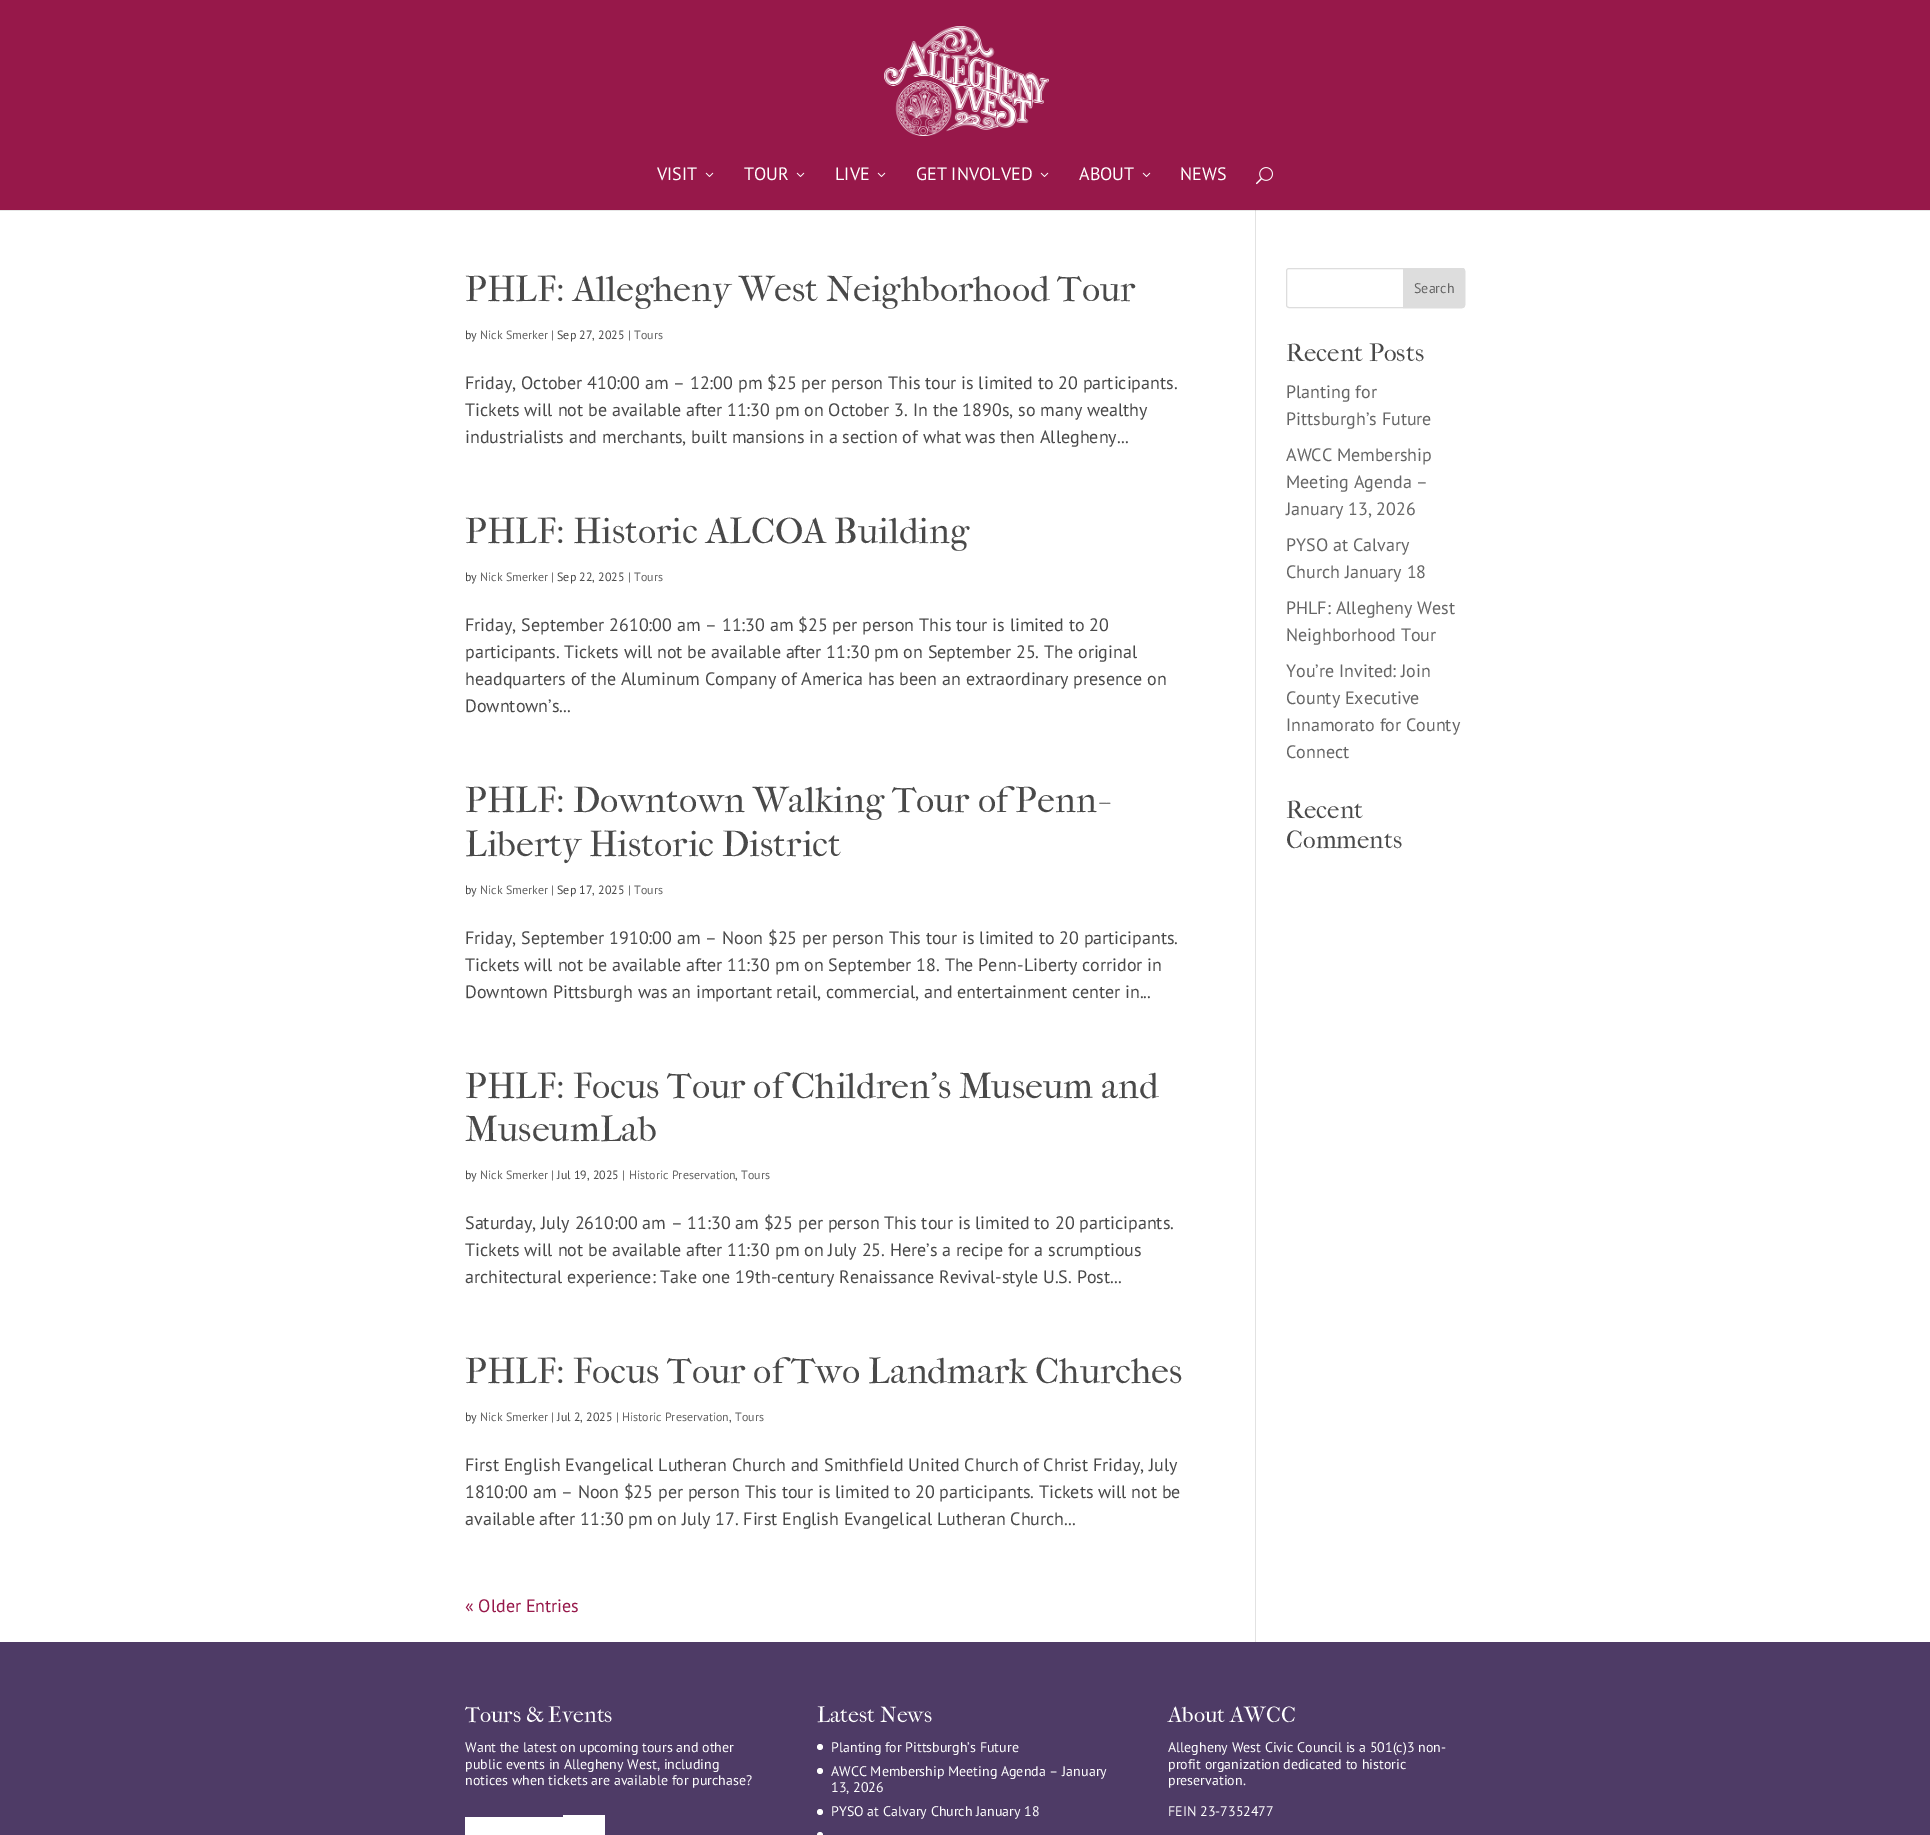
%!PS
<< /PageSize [1930 1835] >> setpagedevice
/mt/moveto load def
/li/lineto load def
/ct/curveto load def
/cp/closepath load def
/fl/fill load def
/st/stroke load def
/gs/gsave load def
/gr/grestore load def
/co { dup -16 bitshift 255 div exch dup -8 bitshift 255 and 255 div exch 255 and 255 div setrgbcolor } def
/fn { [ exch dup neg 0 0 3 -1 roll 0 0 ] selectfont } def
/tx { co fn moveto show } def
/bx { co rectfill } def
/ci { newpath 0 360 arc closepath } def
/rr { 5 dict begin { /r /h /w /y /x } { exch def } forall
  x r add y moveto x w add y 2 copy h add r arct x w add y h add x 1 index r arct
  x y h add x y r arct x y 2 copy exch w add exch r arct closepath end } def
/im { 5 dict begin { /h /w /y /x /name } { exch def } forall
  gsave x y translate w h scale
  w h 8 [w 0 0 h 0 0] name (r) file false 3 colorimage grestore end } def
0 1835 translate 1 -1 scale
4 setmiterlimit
0 0 1930 1835 16#4E3B66 bx
0 0 1930 210 16#97184A bx
(media/1.raw) 884 26 165 110 im
(media/2.raw) 705 172 9 5 im
(media/2.raw) 796 172 9 5 im
(media/2.raw) 877 172 9 5 im
(media/2.raw) 1040 172 9 5 im
(media/2.raw) 1142 172 9 5 im
(media/3.raw) 1256 167 17 18 im
0 211 1930 1431 16#FFFFFF bx
0 210 1930 1 16#E6E6E6 bx
1255 210 1 1432 16#E2E2E2 bx
1255 210 1 1 16#CBCBCB bx
16#DDDDDD co
1286.5 268.5 178 39 2.5 rr st
1403.5 268.5 mt 1462 268.5 li 1463.5 268.5 1464.5 269.5 1464.5 271 ct 1464.5 305 li 1464.5 306.5 1463.5 307.5 1462 307.5 ct 1403.5 307.5 li cp gs fl gr
st
465 1817 98 18 16#FFFFFF bx
563 1815 42 20 16#FFFFFF bx
820 1747 3 ci fl
820 1771 3 ci fl
820 1812 3 ci fl
820 1835 3 ci fl
(VISIT) 657 180 /PTSans-Regular 18 16#FFFFFF tx
(TOUR) 744 180 /PTSans-Regular 18 16#FFFFFF tx
(LIVE) 835 180 /PTSans-Regular 18 16#FFFFFF tx
(GET INVOLVED) 916 180 /PTSans-Regular 18 16#FFFFFF tx
(ABOUT) 1079 180 /PTSans-Regular 18 16#FFFFFF tx
(NEWS) 1180 180 /PTSans-Regular 18 16#FFFFFF tx
(PHLF: Allegheny West Neighborhood Tour) 465 301 /IMFELLFrenchCanon-Regular 36 16#494949 tx
(by) 465 339 /PTSans-Regular 12 16#494949 tx
(Nick Smerker) 480 339 /PTSans-Regular 12 16#666666 tx
(| Sep 27, 2025 |) 551 339 /PTSans-Regular 12 16#494949 tx
(Tours) 634 339 /PTSans-Regular 12 16#666666 tx
(Friday, October 410:00 am – 12:00 pm $25 per person This tour is limited to 20 participants.) 465 389 /PTSans-Regular 18 16#494949 tx
(Tickets will not be available after 11:30 pm on October 3. In the 1890s, so many wealthy) 465 416 /PTSans-Regular 18 16#494949 tx
(industrialists and merchants, built mansions in a section of what was then Allegheny...) 465 443 /PTSans-Regular 18 16#494949 tx
(PHLF: Historic ALCOA Building) 465 543 /IMFELLFrenchCanon-Regular 36 16#494949 tx
(by) 465 581 /PTSans-Regular 12 16#494949 tx
(Nick Smerker) 480 581 /PTSans-Regular 12 16#666666 tx
(| Sep 22, 2025 |) 551 581 /PTSans-Regular 12 16#494949 tx
(Tours) 634 581 /PTSans-Regular 12 16#666666 tx
(Friday, September 2610:00 am – 11:30 am $25 per person This tour is limited to 20) 465 631 /PTSans-Regular 18 16#494949 tx
(participants. Tickets will not be available after 11:30 pm on September 25. The original) 465 658 /PTSans-Regular 18 16#494949 tx
(headquarters of the Aluminum Company of America has been an extraordinary presence on) 465 685 /PTSans-Regular 18 16#494949 tx
(Downtown’s...) 465 712 /PTSans-Regular 18 16#494949 tx
(PHLF: Downtown Walking Tour of Penn-) 465 812 /IMFELLFrenchCanon-Regular 36 16#494949 tx
(Liberty Historic District) 465 856 /IMFELLFrenchCanon-Regular 36 16#494949 tx
(by) 465 894 /PTSans-Regular 12 16#494949 tx
(Nick Smerker) 480 894 /PTSans-Regular 12 16#666666 tx
(| Sep 17, 2025 |) 551 894 /PTSans-Regular 12 16#494949 tx
(Tours) 634 894 /PTSans-Regular 12 16#666666 tx
(Friday, September 1910:00 am – Noon $25 per person This tour is limited to 20 participants.) 465 944 /PTSans-Regular 18 16#494949 tx
(Tickets will not be available after 11:30 pm on September 18. The Penn-Liberty corridor in) 465 971 /PTSans-Regular 18 16#494949 tx
(Downtown Pittsburgh was an important retail, commercial, and entertainment center in...) 465 998 /PTSans-Regular 18 16#494949 tx
(PHLF: Focus Tour of Children’s Museum and) 465 1098 /IMFELLFrenchCanon-Regular 36 16#494949 tx
(MuseumLab) 465 1141 /IMFELLFrenchCanon-Regular 36 16#494949 tx
(by) 465 1179 /PTSans-Regular 12 16#494949 tx
(Nick Smerker) 480 1179 /PTSans-Regular 12 16#666666 tx
(| Jul 19, 2025 |) 551 1179 /PTSans-Regular 12 16#494949 tx
(Historic Preservation) 629 1179 /PTSans-Regular 12 16#666666 tx
(,) 735 1179 /PTSans-Regular 12 16#494949 tx
(Tours) 741 1179 /PTSans-Regular 12 16#666666 tx
(Saturday, July 2610:00 am – 11:30 am $25 per person This tour is limited to 20 participants.) 465 1229 /PTSans-Regular 18 16#494949 tx
(Tickets will not be available after 11:30 pm on July 25. Here’s a recipe for a scrumptious) 465 1256 /PTSans-Regular 18 16#494949 tx
(architectural experience: Take one 19th-century Renaissance Revival-style U.S. Post...) 465 1283 /PTSans-Regular 18 16#494949 tx
(PHLF: Focus Tour of Two Landmark Churches) 465 1383 /IMFELLFrenchCanon-Regular 36 16#494949 tx
(by) 465 1421 /PTSans-Regular 12 16#494949 tx
(Nick Smerker) 480 1421 /PTSans-Regular 12 16#666666 tx
(| Jul 2, 2025 |) 551 1421 /PTSans-Regular 12 16#494949 tx
(Historic Preservation) 622 1421 /PTSans-Regular 12 16#666666 tx
(,) 729 1421 /PTSans-Regular 12 16#494949 tx
(Tours) 735 1421 /PTSans-Regular 12 16#666666 tx
(First English Evangelical Lutheran Church and Smithfield United Church of Christ Friday, July) 465 1471 /PTSans-Regular 18 16#494949 tx
(1810:00 am – Noon $25 per person This tour is limited to 20 participants. Tickets will not be) 465 1498 /PTSans-Regular 18 16#494949 tx
(available after 11:30 pm on July 17. First English Evangelical Lutheran Church...) 465 1525 /PTSans-Regular 18 16#494949 tx
(« Older Entries) 465 1612 /PTSans-Regular 18 16#97184A tx
(Search) 1414 293 /PTSans-Regular 14 16#666666 tx
(Recent Posts) 1286 361 /IMFELLFrenchCanon-Regular 25 16#494949 tx
(Planting for) 1286 398 /PTSans-Regular 18 16#666666 tx
(Pittsburgh’s Future) 1286 425 /PTSans-Regular 18 16#666666 tx
(AWCC Membership) 1286 461 /PTSans-Regular 18 16#666666 tx
(Meeting Agenda –) 1286 488 /PTSans-Regular 18 16#666666 tx
(January 13, 2026) 1286 515 /PTSans-Regular 18 16#666666 tx
(PYSO at Calvary) 1286 551 /PTSans-Regular 18 16#666666 tx
(Church January 18) 1286 578 /PTSans-Regular 18 16#666666 tx
(PHLF: Allegheny West) 1286 614 /PTSans-Regular 18 16#666666 tx
(Neighborhood Tour) 1286 641 /PTSans-Regular 18 16#666666 tx
(You’re Invited: Join) 1286 677 /PTSans-Regular 18 16#666666 tx
(County Executive) 1286 704 /PTSans-Regular 18 16#666666 tx
(Innamorato for County) 1286 731 /PTSans-Regular 18 16#666666 tx
(Connect) 1286 758 /PTSans-Regular 18 16#666666 tx
(Recent) 1286 818 /IMFELLFrenchCanon-Regular 25 16#494949 tx
(Comments) 1286 848 /IMFELLFrenchCanon-Regular 25 16#494949 tx
(Tours & Events) 465 1722 /IMFELLFrenchCanon-Regular 22 16#FFFFFF tx
(Want the latest on upcoming tours and other) 465 1752 /PTSans-Regular 14 16#FFFFFF tx
(public events in Allegheny West, including) 465 1769 /PTSans-Regular 14 16#FFFFFF tx
(notices when tickets are available for purchase?) 465 1785 /PTSans-Regular 14 16#FFFFFF tx
(Latest News) 817 1722 /IMFELLFrenchCanon-Regular 22 16#FFFFFF tx
(Planting for Pittsburgh’s Future) 831 1752 /PTSans-Regular 14 16#FFFFFF tx
(AWCC Membership Meeting Agenda – January) 831 1776 /PTSans-Regular 14 16#FFFFFF tx
(13, 2026) 831 1792 /PTSans-Regular 14 16#FFFFFF tx
(PYSO at Calvary Church January 18) 831 1816 /PTSans-Regular 14 16#FFFFFF tx
(About AWCC) 1168 1722 /IMFELLFrenchCanon-Regular 22 16#FFFFFF tx
(Allegheny West Civic Council is a 501\(c\)3 non-) 1168 1752 /PTSans-Regular 14 16#FFFFFF tx
(profit organization dedicated to historic) 1168 1769 /PTSans-Regular 14 16#FFFFFF tx
(preservation.) 1168 1785 /PTSans-Regular 14 16#FFFFFF tx
(FEIN 23-7352477) 1168 1816 /PTSans-Regular 14 16#FFFFFF tx
showpage
